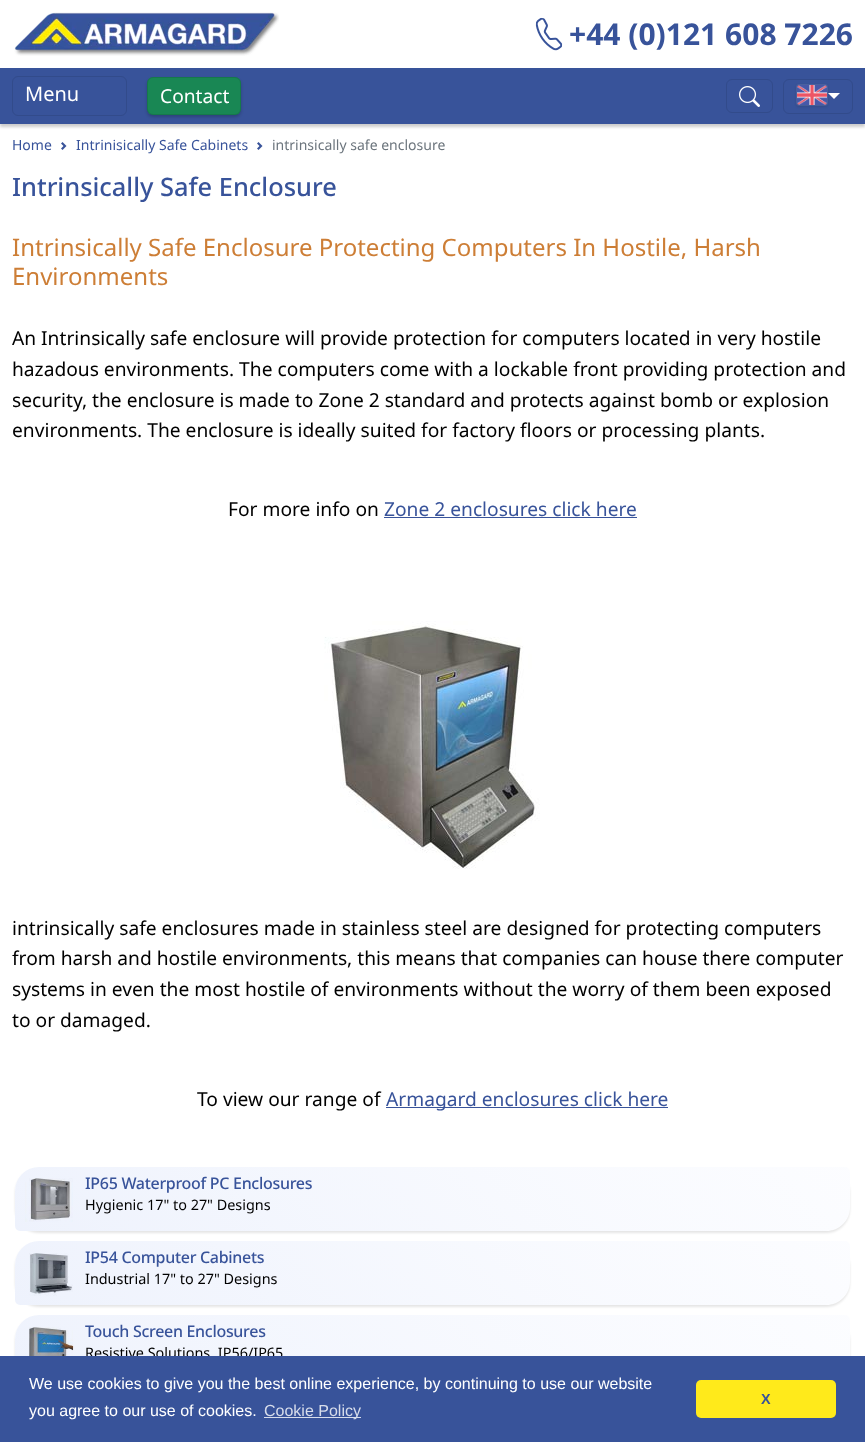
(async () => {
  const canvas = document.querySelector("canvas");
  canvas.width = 865;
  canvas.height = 1442;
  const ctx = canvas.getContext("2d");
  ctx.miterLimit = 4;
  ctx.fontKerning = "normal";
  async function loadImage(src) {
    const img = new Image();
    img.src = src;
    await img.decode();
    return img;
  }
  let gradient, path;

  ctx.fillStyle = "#ffffff";
  ctx.fillRect(0, 0, 865, 1442);
  ctx.drawImage(await loadImage("img/1.png"), 14, 12, 265, 44);
  ctx.drawImage(await loadImage("img/2.png"), 535, 17, 28, 34);
  ctx.fillStyle = "rgba(0, 0, 0, 0.2)";
  ctx.filter = "blur(1.5px)";
  ctx.beginPath();
  ctx.rect(0, 71, 865, 56);
  ctx.fill();
  ctx.filter = "none";
  ctx.fillStyle = "#38539a";
  ctx.fillRect(0, 68, 865, 56);
  ctx.beginPath();
  ctx.roundRect(12.5, 76.5, 114, 39, 5.5);
  ctx.strokeStyle = "#324b8b";
  ctx.stroke();
  ctx.fillStyle = "rgba(0, 0, 0, 0.2)";
  ctx.filter = "blur(1.5px)";
  ctx.beginPath();
  ctx.roundRect(147, 79, 94, 38, 6);
  ctx.fill();
  ctx.filter = "none";
  ctx.fillStyle = "#198754";
  ctx.beginPath();
  ctx.roundRect(147, 77, 94, 38, 6);
  ctx.fill();
  ctx.beginPath();
  ctx.roundRect(147.5, 77.5, 93, 37, 5.5);
  ctx.strokeStyle = "rgba(0, 0, 0, 0.1)";
  ctx.stroke();
  ctx.beginPath();
  ctx.roundRect(726.5, 79.5, 46, 33, 5.5);
  ctx.strokeStyle = "#324b8b";
  ctx.stroke();
  ctx.drawImage(await loadImage("img/3.png"), 739, 86, 21, 21);
  ctx.beginPath();
  ctx.roundRect(783.5, 79.5, 69, 34, 5.5);
  ctx.stroke();
  ctx.fillStyle = "rgba(0, 0, 0, 0.1)";
  ctx.filter = "blur(1px)";
  ctx.beginPath();
  ctx.roundRect(796, 85, 32, 22, 3);
  ctx.fill();
  ctx.filter = "none";
  ctx.drawImage(await loadImage("img/4.png"), 797, 85, 30, 20);
  ctx.beginPath();
  ctx.roundRect(796.5, 84.5, 31, 21, 2.5);
  ctx.strokeStyle = "rgba(255, 255, 255, 0.1)";
  ctx.stroke();
  ctx.fillStyle = "#ffffff";
  path = new Path2D("M828 93H840L834 99Z");
  ctx.fill(path);
  ctx.drawImage(await loadImage("img/5.png"), 61, 142, 6, 8);
  ctx.drawImage(await loadImage("img/5.png"), 257, 142, 6, 8);
  ctx.fillStyle = "#38539a";
  ctx.fillRect(384, 517, 253, 1);
  ctx.drawImage(await loadImage("img/6.png"), 324, 621, 216, 248);
  ctx.fillRect(386, 1107, 282, 1);
  ctx.drawImage(await loadImage("img/7.png"), 25, 1178, 48, 44);
  ctx.save();
  path = new Path2D("M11 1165H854V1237H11ZM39 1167H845C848 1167 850 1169 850 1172V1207C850 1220.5 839.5 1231 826 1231H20C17 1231 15 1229 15 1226V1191C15 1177.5 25.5 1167 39 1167Z");
  ctx.clip(path, "evenodd");
  ctx.fillStyle = "rgba(0, 0, 0, 0.1)";
  ctx.filter = "blur(1px)";
  ctx.beginPath();
  ctx.roundRect(15, 1169, 835, 64, 24);
  ctx.fill();
  ctx.filter = "none";
  ctx.restore();
  gradient = ctx.createLinearGradient(208, 1424, 657, 974);
  gradient.addColorStop(0, "rgba(86, 127, 230, 0.1)");
  gradient.addColorStop(1, "rgba(189, 207, 255, 0.05)");
  ctx.fillStyle = gradient;
  ctx.beginPath();
  ctx.roundRect(15, 1167, 835, 64, [24, 5, 24, 5]);
  ctx.fill();
  ctx.drawImage(await loadImage("img/8.png"), 29, 1253, 44, 43);
  ctx.save();
  path = new Path2D("M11 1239H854V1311H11ZM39 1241H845C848 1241 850 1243 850 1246V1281C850 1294.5 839.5 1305 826 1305H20C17 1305 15 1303 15 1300V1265C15 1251.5 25.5 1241 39 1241Z");
  ctx.clip(path, "evenodd");
  ctx.fillStyle = "rgba(0, 0, 0, 0.1)";
  ctx.filter = "blur(1px)";
  ctx.beginPath();
  ctx.roundRect(15, 1243, 835, 64, 24);
  ctx.fill();
  ctx.filter = "none";
  ctx.restore();
  gradient = ctx.createLinearGradient(208, 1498, 657, 1048);
  gradient.addColorStop(0, "rgba(86, 127, 230, 0.1)");
  gradient.addColorStop(1, "rgba(189, 207, 255, 0.05)");
  ctx.fillStyle = gradient;
  ctx.beginPath();
  ctx.roundRect(15, 1241, 835, 64, [24, 5, 24, 5]);
  ctx.fill();
  ctx.drawImage(await loadImage("img/9.png"), 29, 1327, 45, 29);
  ctx.save();
  path = new Path2D("M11 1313H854V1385H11ZM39 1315H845C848 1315 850 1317 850 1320V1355C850 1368.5 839.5 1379 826 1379H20C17 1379 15 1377 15 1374V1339C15 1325.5 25.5 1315 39 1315Z");
  ctx.clip(path, "evenodd");
  ctx.fillStyle = "rgba(0, 0, 0, 0.1)";
  ctx.filter = "blur(1px)";
  ctx.beginPath();
  ctx.roundRect(15, 1317, 835, 64, 24);
  ctx.fill();
  ctx.filter = "none";
  ctx.restore();
  gradient = ctx.createLinearGradient(208, 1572, 657, 1122);
  gradient.addColorStop(0, "rgba(86, 127, 230, 0.1)");
  gradient.addColorStop(1, "rgba(189, 207, 255, 0.05)");
  ctx.fillStyle = gradient;
  ctx.beginPath();
  ctx.roundRect(15, 1315, 835, 64, [24, 5, 24, 5]);
  ctx.fill();
  ctx.font = "bold 30px Noto Sans";
  ctx.fillStyle = "#38539a";
  ctx.fillText("+44 (0)121 608 7226", 569, 45);
  ctx.font = "20px Noto Sans";
  ctx.fillStyle = "#ffffff";
  ctx.fillText("Menu", 25, 101);
  ctx.font = "19.2px Noto Sans";
  ctx.fillText("Contact", 160, 103);
  ctx.font = "14px Noto Sans";
  ctx.fillStyle = "#38539a";
  ctx.fillText("Home", 12, 150);
  ctx.fillText("Intrinisically Safe Cabinets", 76, 150);
  ctx.fillStyle = "#6c757d";
  ctx.fillText("intrinsically safe enclosure", 272, 150);
  ctx.font = "500 25.4px Noto Sans";
  ctx.fillStyle = "#38539a";
  ctx.fillText("Intrinsically Safe Enclosure", 12, 196);
  ctx.font = "24px Noto Sans";
  ctx.fillStyle = "#cd7e36";
  ctx.fillText("Intrinsically Safe Enclosure Protecting Computers In Hostile, Harsh", 12, 256);
  ctx.fillText("Environments", 12, 285);
  ctx.font = "19.2px Noto Sans";
  ctx.fillStyle = "#000000";
  for (const [text, x, y] of [
    ["An Intrinsically safe enclosure will provide protection for computers located in very hostile", 12, 345],
    ["hazadous environments. The computers come with a lockable front providing protection and", 12, 376],
    ["security, the enclosure is made to Zone 2 standard and protects against bomb or explosion", 12, 407],
    ["environments. The enclosure is ideally suited for factory floors or processing plants.", 12, 437],
    ["For more info on", 228, 516],
  ]) {
    ctx.fillText(text, x, y);
  }
  ctx.fillStyle = "#38539a";
  ctx.fillText("Zone 2 enclosures click here", 384, 516);
  ctx.fillStyle = "#000000";
  for (const [text, x, y] of [
    ["intrinsically safe enclosures made in stainless steel are designed for protecting computers", 12, 935],
    ["from harsh and hostile environments, this means that companies can house there computer", 12, 965],
    ["systems in even the most hostile of environments without the worry of them been exposed", 12, 996],
    ["to or damaged.", 12, 1027],
    ["To view our range of", 197, 1106],
  ]) {
    ctx.fillText(text, x, y);
  }
  ctx.fillStyle = "#38539a";
  ctx.fillText("Armagard enclosures click here", 386, 1106);
  ctx.letterSpacing = "-0.3px";
  ctx.font = "500 16px Noto Sans";
  ctx.fillText("IP65 Waterproof PC Enclosures", 85, 1189);
  ctx.letterSpacing = "0px";
  ctx.font = "14.4px Noto Sans";
  ctx.fillStyle = "#000000";
  ctx.fillText("Hygienic 17\" to 27\" Designs", 85, 1210);
  ctx.letterSpacing = "-0.3px";
  ctx.font = "500 16px Noto Sans";
  ctx.fillStyle = "#38539a";
  ctx.fillText("IP54 Computer Cabinets", 85, 1263);
  ctx.letterSpacing = "0px";
  ctx.font = "14.4px Noto Sans";
  ctx.fillStyle = "#000000";
  ctx.fillText("Industrial 17\" to 27\" Designs", 85, 1284);
  ctx.letterSpacing = "-0.3px";
  ctx.font = "500 16px Noto Sans";
  ctx.fillStyle = "#38539a";
  ctx.fillText("Touch Screen Enclosures", 85, 1337);
  ctx.letterSpacing = "0px";
  ctx.font = "14.4px Noto Sans";
  ctx.fillStyle = "#000000";
  ctx.fillText("Resistive Solutions, IP56/IP65", 85, 1358);
  ctx.fillStyle = "#38539a";
  ctx.fillRect(0, 1356, 865, 86);
  ctx.font = "16px Liberation Sans";
  ctx.fillStyle = "#ffffff";
  ctx.fillText("We use cookies to give you the best online experience, by continuing to use our website", 29, 1389);
  ctx.fillText("you agree to our use of cookies.", 29, 1416);
  ctx.fillStyle = "#d7ddeb";
  ctx.fillRect(264, 1417, 97, 1);
  ctx.fillText("Cookie Policy", 264, 1416);
  ctx.fillStyle = "#ffea1b";
  ctx.beginPath();
  ctx.roundRect(696, 1380, 140, 38, 5);
  ctx.fill();
  ctx.font = "bold 14.4px Liberation Sans";
  ctx.fillStyle = "#38539a";
  ctx.fillText("X", 761, 1404);
})();
